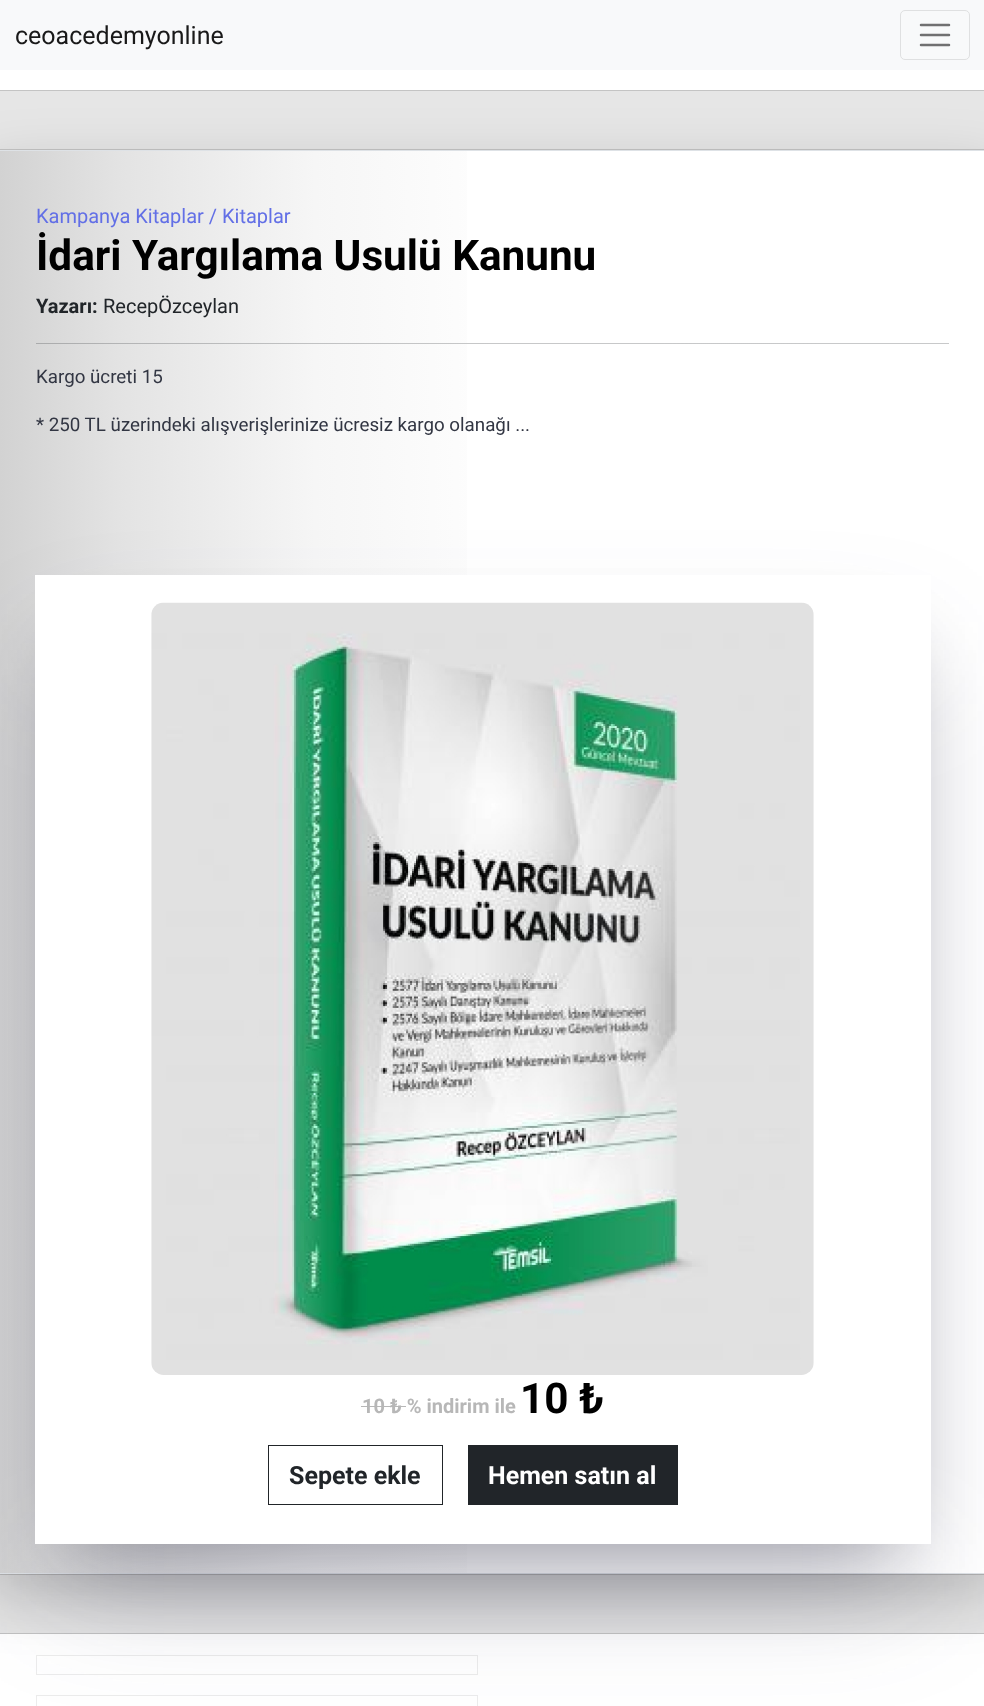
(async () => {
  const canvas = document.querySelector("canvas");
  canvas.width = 984;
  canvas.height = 1706;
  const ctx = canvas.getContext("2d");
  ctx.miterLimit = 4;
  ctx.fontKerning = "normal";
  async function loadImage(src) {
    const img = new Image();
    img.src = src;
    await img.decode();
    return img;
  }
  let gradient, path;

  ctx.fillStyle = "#ffffff";
  ctx.fillRect(0, 0, 984, 1706);
  ctx.fillStyle = "#f8f9fa";
  ctx.fillRect(0, 0, 984, 70);
  ctx.beginPath();
  ctx.roundRect(900.5, 10.5, 69, 49, 4.5);
  ctx.strokeStyle = "#dfe0e1";
  ctx.stroke();
  path = new Path2D("M921 25H949M921 35H949M921 45H949");
  ctx.strokeStyle = "#707071";
  ctx.lineWidth = 2.5;
  ctx.lineCap = "round";
  ctx.stroke(path);
  for (const [x, y, w, h, color] of [
    [0, 91, 984, 58, "#e6e6e6"],
    [0, 90, 984, 1, "#c4c4c4"],
    [0, 149, 984, 1, "#c4c4c4"],
  ]) {
    ctx.fillStyle = color;
    ctx.fillRect(x, y, w, h);
  }
  gradient = ctx.createLinearGradient(0, 862, 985, 862);
  gradient.addColorStop(0, "#d2d2d2");
  gradient.addColorStop(0.12, "#e3e3e3");
  gradient.addColorStop(0.32, "#f6f6f6");
  gradient.addColorStop(0.51, "#fefefe");
  gradient.addColorStop(1, "#ffffff");
  ctx.fillStyle = gradient;
  ctx.fillRect(0, 151, 467, 1422);
  gradient = ctx.createLinearGradient(0, 862, 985, 862);
  gradient.addColorStop(0, "#a6a7a8");
  gradient.addColorStop(0.12, "#b3b4b5");
  gradient.addColorStop(0.32, "#c1c2c3");
  gradient.addColorStop(0.51, "#c7c8c9");
  gradient.addColorStop(1, "#c8c9ca");
  ctx.fillStyle = gradient;
  ctx.fillRect(36, 343, 913, 1);
  ctx.save();
  path = new Path2D("M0 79H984V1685H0ZM-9 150H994C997.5 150 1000 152.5 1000 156V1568C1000 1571.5 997.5 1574 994 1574H-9C-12.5 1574-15 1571.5-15 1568V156C-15 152.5-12.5 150-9 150Z");
  ctx.clip(path, "evenodd");
  ctx.fillStyle = "rgba(0, 0, 0, 0.18)";
  ctx.filter = "blur(30px)";
  ctx.beginPath();
  ctx.roundRect(-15, 170, 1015, 1424, 6);
  ctx.fill();
  ctx.filter = "none";
  ctx.restore();
  ctx.strokeStyle = "#dee2e6";
  ctx.lineWidth = 1;
  ctx.strokeRect(-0.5, 150.5, 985, 1423);
  for (const [x, y, w, h, color] of [
    [0, 1574, 984, 59, "rgba(0, 0, 0, 0.1)"],
    [0, 1574, 984, 1, "rgba(0, 0, 0, 0.15)"],
    [0, 1633, 984, 1, "#c0c0c0"],
  ]) {
    ctx.fillStyle = color;
    ctx.fillRect(x, y, w, h);
  }
  ctx.strokeStyle = "#ececec";
  ctx.strokeRect(36.5, 1655.5, 441, 19);
  ctx.fillStyle = "rgba(0, 0, 0, 0.3)";
  ctx.filter = "blur(37.5px)";
  ctx.beginPath();
  ctx.rect(73, 650, 821, 894);
  ctx.fill();
  ctx.filter = "none";
  ctx.strokeRect(36.5, 1695.5, 441, 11);
  ctx.fillStyle = "rgba(50, 50, 93, 0.25)";
  ctx.filter = "blur(62.5px)";
  ctx.beginPath();
  ctx.rect(60, 663, 846, 918);
  ctx.fill();
  ctx.filter = "none";
  ctx.fillStyle = "#ffffff";
  ctx.fillRect(35, 575, 896, 969);
  ctx.drawImage(await loadImage("img/1.png"), 151, 602, 663, 773);
  ctx.fillStyle = "#b7b7b7";
  ctx.fillRect(361, 1406, 45, 1);
  ctx.strokeStyle = "#212529";
  ctx.strokeRect(268.5, 1445.5, 174, 59);
  ctx.fillStyle = "#212529";
  ctx.fillRect(468, 1445, 210, 60);
  ctx.font = "25px Roboto";
  ctx.fillStyle = "#191919";
  ctx.fillText("ceoacedemyonline", 15, 44);
  ctx.font = "20px Roboto";
  ctx.fillStyle = "#626fe6";
  ctx.fillText("Kampanya Kitaplar / Kitaplar", 36, 223);
  ctx.font = "bold 42.25px Roboto";
  ctx.fillStyle = "#000000";
  ctx.fillText("İdari Yargılama Usulü Kanunu", 36, 270);
  ctx.font = "bold 20px Roboto";
  ctx.fillStyle = "#212529";
  ctx.fillText("Yazarı:", 36, 313);
  ctx.font = "20px Roboto";
  ctx.fillText("RecepÖzceylan", 103, 313);
  ctx.font = "18.75px Roboto";
  ctx.fillStyle = "#323643";
  ctx.fillText("Kargo ücreti 15", 36, 383);
  ctx.fillText("* 250 TL üzerindeki alışverişlerinize ücresiz kargo olanağı ...", 36, 431);
  ctx.font = "bold 20px Roboto";
  ctx.fillStyle = "#b7b7b7";
  ctx.fillText("10 ₺ % indirim ile", 362, 1413);
  ctx.font = "bold 42.25px Roboto";
  ctx.fillStyle = "#000000";
  ctx.fillText("10 ₺", 520, 1413);
  ctx.font = "bold 25px Roboto";
  ctx.fillStyle = "#212529";
  ctx.fillText("Sepete ekle", 289, 1484);
  ctx.fillStyle = "#ffffff";
  ctx.fillText("Hemen satın al", 488, 1484);
})();
